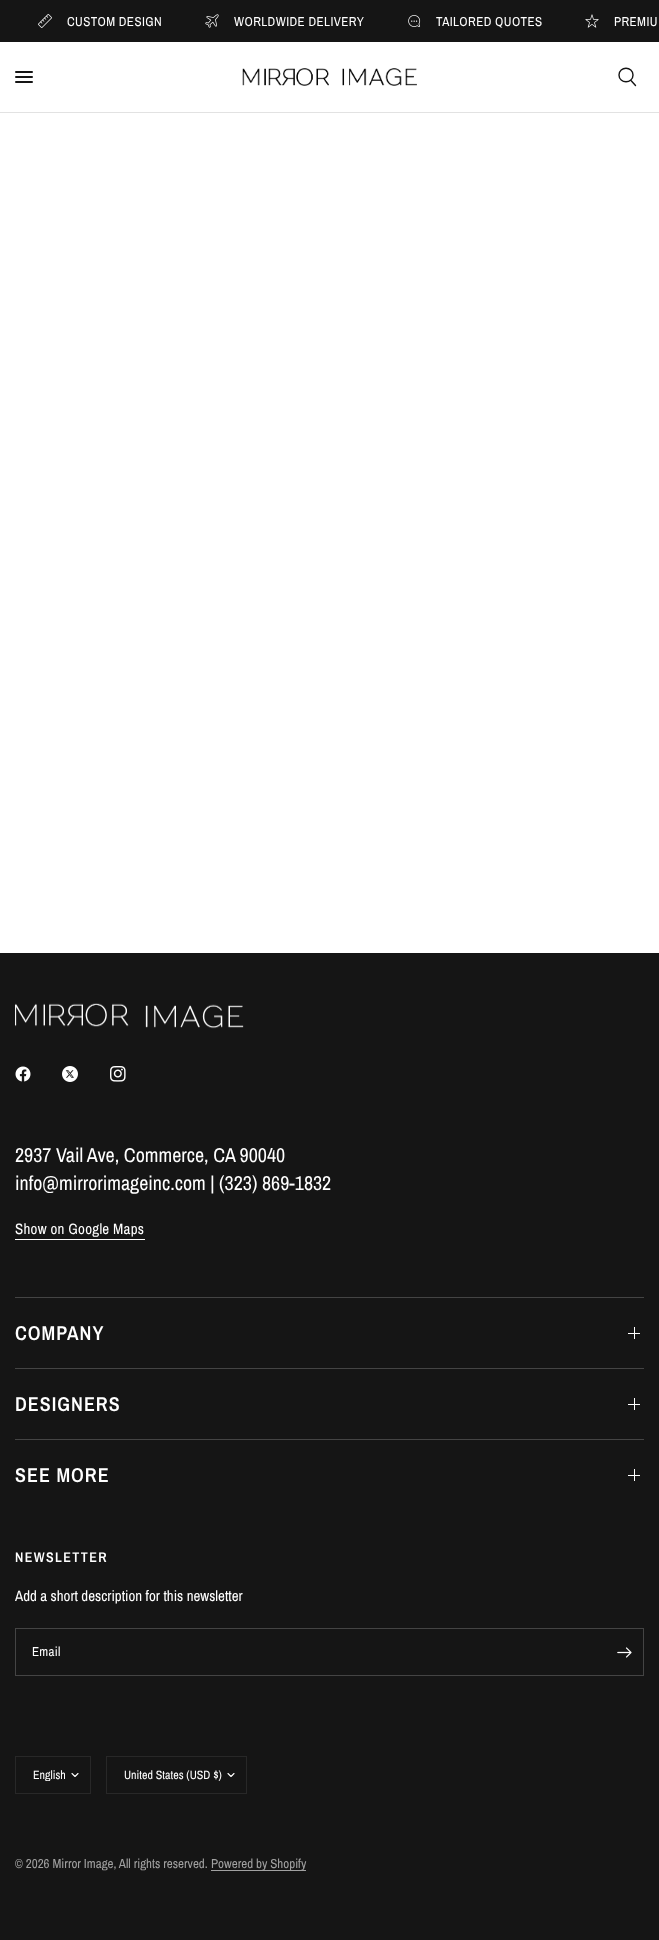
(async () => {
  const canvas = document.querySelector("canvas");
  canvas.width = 659;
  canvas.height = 1940;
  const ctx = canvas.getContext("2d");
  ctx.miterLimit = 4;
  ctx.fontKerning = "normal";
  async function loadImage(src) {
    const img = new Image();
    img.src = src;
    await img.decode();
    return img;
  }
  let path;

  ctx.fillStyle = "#ffffff";
  ctx.fillRect(0, 0, 659, 1940);
  ctx.fillStyle = "#151515";
  ctx.fillRect(0, 0, 659, 42);
  ctx.drawImage(await loadImage("img/1.png"), 38, 14, 14, 14);
  ctx.drawImage(await loadImage("img/2.png"), 205, 14, 14, 14);
  ctx.drawImage(await loadImage("img/3.png"), 408, 15, 13, 12);
  ctx.drawImage(await loadImage("img/4.png"), 585, 14, 14, 14);
  ctx.fillStyle = "#e2e2e2";
  ctx.fillRect(0, 112, 659, 1);
  ctx.fillStyle = "#151515";
  ctx.beginPath();
  ctx.roundRect(15, 71, 18, 2, 1);
  ctx.fill();
  ctx.beginPath();
  ctx.roundRect(15, 76, 18, 2, 1);
  ctx.fill();
  ctx.beginPath();
  ctx.roundRect(15, 81, 18, 2, 1);
  ctx.fill();
  ctx.drawImage(await loadImage("img/5.png"), 242, 68, 175, 18);
  path = new Path2D("M631 80.5L635.5 85.5M633 75C633 84 619 84 619 75C619 66 633 66 633 75Z");
  ctx.strokeStyle = "#151515";
  ctx.lineWidth = 1.4;
  ctx.lineCap = "round";
  ctx.lineJoin = "round";
  ctx.stroke(path);
  ctx.fillRect(0, 953, 659, 987);
  ctx.drawImage(await loadImage("img/6.png"), 15, 1003, 229, 26);
  ctx.drawImage(await loadImage("img/7.png"), 15, 1066, 16, 16);
  ctx.drawImage(await loadImage("img/8.png"), 62, 1066, 16, 16);
  ctx.drawImage(await loadImage("img/9.png"), 110, 1066, 16, 16);
  for (const [x, y, w, h, color] of [
    [15, 1239, 130, 1, "#ffffff"],
    [15, 1297, 629, 1, "#444444"],
    [634, 1327, 1, 12, "#ffffff"],
    [628, 1333, 12, 1, "#ffffff"],
    [15, 1368, 629, 1, "#444444"],
    [634, 1398, 1, 12, "#ffffff"],
    [628, 1404, 12, 1, "#ffffff"],
    [15, 1439, 629, 1, "#444444"],
    [634, 1469, 1, 12, "#ffffff"],
    [628, 1475, 12, 1, "#ffffff"],
  ]) {
    ctx.fillStyle = color;
    ctx.fillRect(x, y, w, h);
  }
  ctx.strokeStyle = "#444444";
  ctx.lineWidth = 1;
  ctx.lineJoin = "miter";
  ctx.strokeRect(15.5, 1628.5, 628, 47);
  ctx.drawImage(await loadImage("img/10.png"), 617, 1647, 15, 11);
  ctx.strokeStyle = "#282828";
  ctx.strokeRect(15.5, 1756.5, 75, 37);
  path = new Path2D("M78 1773.5L75 1776.5L72 1773.5");
  ctx.strokeStyle = "#ffffff";
  ctx.lineWidth = 1.1;
  ctx.lineJoin = "round";
  ctx.stroke(path);
  ctx.strokeStyle = "#282828";
  ctx.lineWidth = 1;
  ctx.lineJoin = "miter";
  ctx.strokeRect(106.5, 1756.5, 140, 37);
  path = new Path2D("M234 1773.5L231 1776.5L228 1773.5");
  ctx.strokeStyle = "#ffffff";
  ctx.lineWidth = 1.1;
  ctx.lineJoin = "round";
  ctx.stroke(path);
  ctx.fillStyle = "#a1a1a1";
  ctx.fillRect(211, 1870, 95, 1);
  ctx.letterSpacing = "0.4px";
  ctx.font = "13px Archivo Narrow";
  ctx.fillStyle = "#ffffff";
  for (const [text, x, y] of [
    ["CUSTOM DESIGN", 67, 26],
    ["WORLDWIDE DELIVERY", 234, 26],
    ["TAILORED QUOTES", 436, 26],
    ["PREMIU", 614, 26],
  ]) {
    ctx.fillText(text, x, y);
  }
  ctx.letterSpacing = "0px";
  ctx.font = "20px Archivo Narrow";
  ctx.fillText("2937 Vail Ave, Commerce, CA 90040", 15, 1162);
  ctx.fillText("info@mirrorimageinc.com | (323) 869-1832", 15, 1190);
  ctx.letterSpacing = "0.25px";
  ctx.font = "15px Archivo Narrow";
  ctx.fillText("Show on Google Maps", 15, 1234);
  ctx.letterSpacing = "1px";
  ctx.font = "600 20px Archivo Narrow";
  for (const [text, x, y] of [
    ["COMPANY", 15, 1340],
    ["DESIGNERS", 15, 1411],
    ["SEE MORE", 15, 1482],
  ]) {
    ctx.fillText(text, x, y);
  }
  ctx.letterSpacing = "1.4px";
  ctx.font = "600 14px Archivo Narrow";
  ctx.fillText("NEWSLETTER", 15, 1562);
  ctx.letterSpacing = "0px";
  ctx.font = "15px Archivo Narrow";
  ctx.fillText("Add a short description for this newsletter", 15, 1601);
  ctx.letterSpacing = "0.25px";
  ctx.font = "13px Archivo Narrow";
  ctx.fillText("Email", 32, 1656);
  ctx.save();
  ctx.beginPath();
  ctx.rect(33, 1769, 33, 12);
  ctx.clip();
  ctx.letterSpacing = "0px";
  ctx.font = "12px Archivo Narrow";
  ctx.fillText("English", 33, 1779);
  ctx.restore();
  ctx.letterSpacing = "0px";
  ctx.font = "12px Archivo Narrow";
  ctx.fillText("United States (USD $)", 124, 1779);
  ctx.font = "13px Archivo Narrow";
  ctx.fillStyle = "#a1a1a1";
  ctx.fillText("© 2026 Mirror Image, All rights reserved.", 15, 1868);
  ctx.fillText("Powered by Shopify", 211, 1868);
})();
